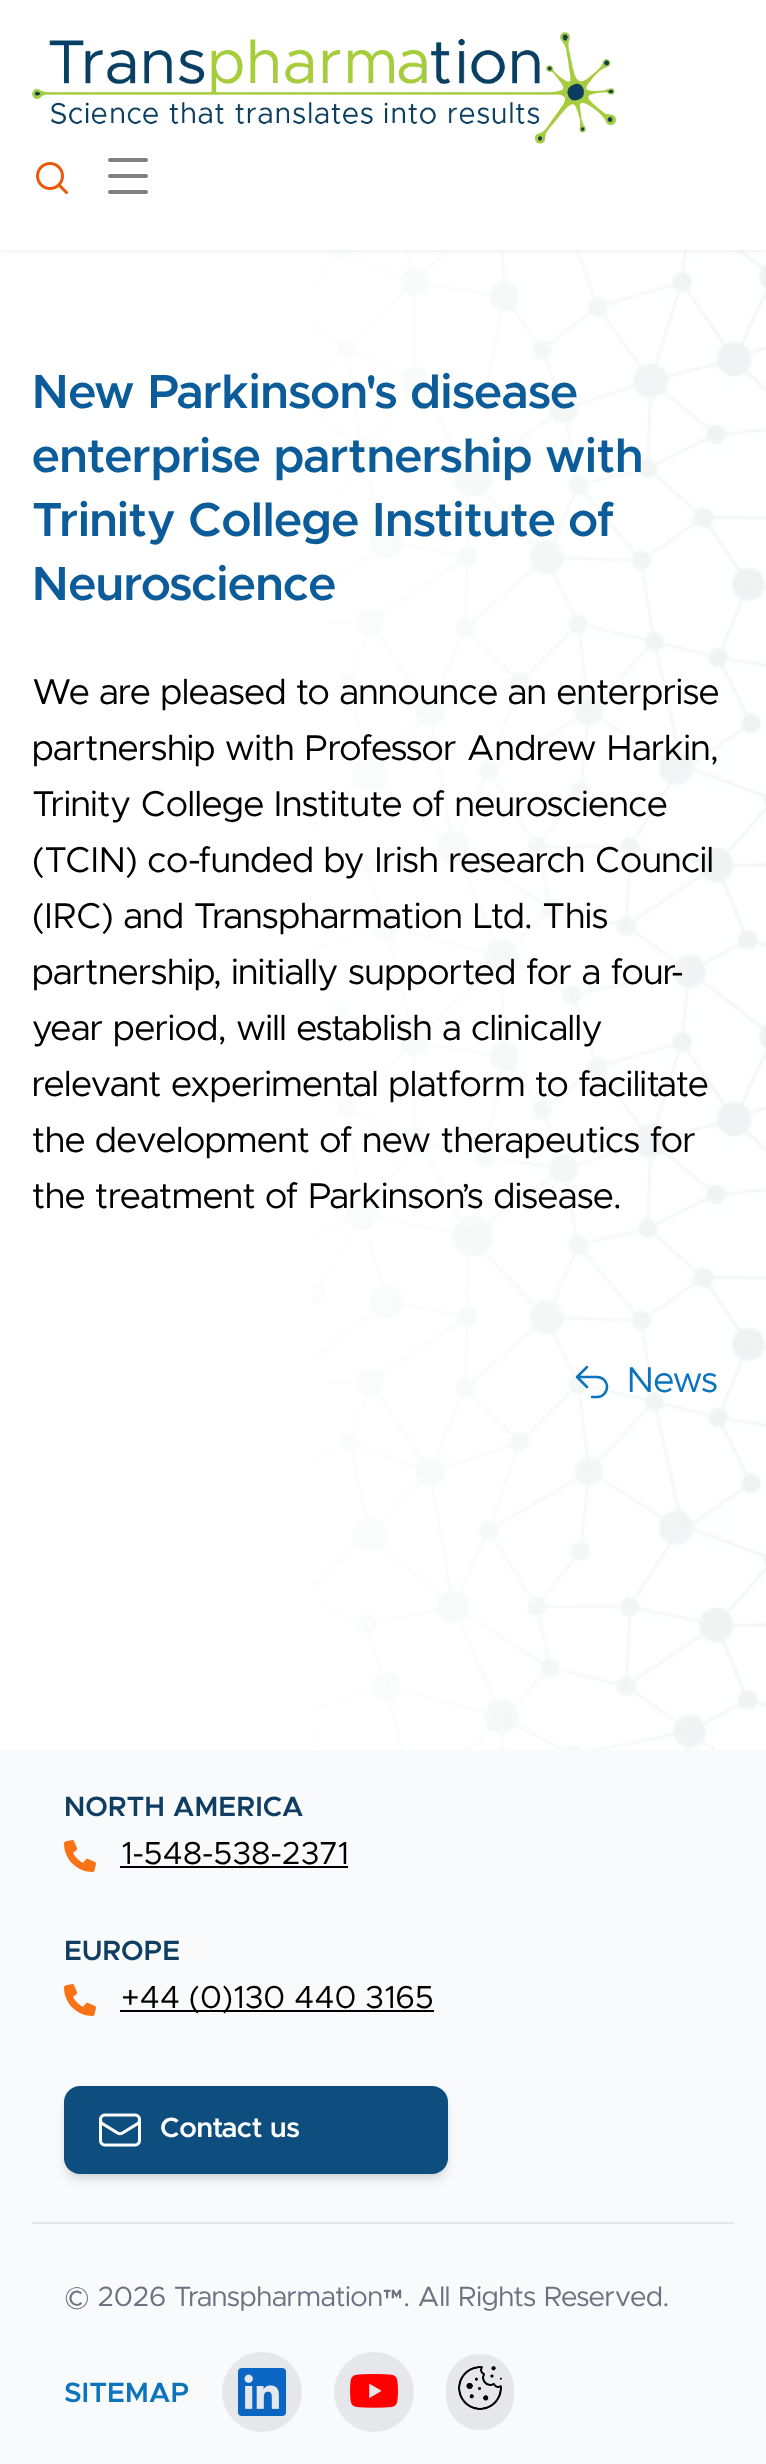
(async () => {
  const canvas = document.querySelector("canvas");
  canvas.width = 766;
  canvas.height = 2464;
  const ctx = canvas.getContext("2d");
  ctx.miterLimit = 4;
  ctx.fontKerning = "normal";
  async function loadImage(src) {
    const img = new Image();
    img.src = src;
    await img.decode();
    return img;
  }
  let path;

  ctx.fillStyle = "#ffffff";
  ctx.fillRect(0, 0, 766, 2464);
  ctx.drawImage(await loadImage("img/3.png"), 312, 250, 454, 1500);
  ctx.fillStyle = "rgba(0, 0, 0, 0.05)";
  ctx.filter = "blur(2px)";
  ctx.beginPath();
  ctx.rect(0, 2, 766, 250);
  ctx.fill();
  ctx.filter = "none";
  ctx.fillStyle = "#ffffff";
  ctx.fillRect(0, 0, 766, 250);
  ctx.drawImage(await loadImage("img/1.png"), 32, 32, 584, 112);
  ctx.drawImage(await loadImage("img/2.png"), 36, 162, 32, 32);
  ctx.fillStyle = "#808080";
  ctx.beginPath();
  ctx.roundRect(108, 174, 40, 4, 2);
  ctx.fill();
  ctx.beginPath();
  ctx.roundRect(108, 158, 40, 4, 2);
  ctx.fill();
  ctx.beginPath();
  ctx.roundRect(108, 190, 40, 4, 2);
  ctx.fill();
  path = new Path2D("M587 1387L577 1377M577 1377L587 1367M577 1377H597C602.5 1377 607 1381.5 607 1387C607 1392.5 602.5 1397 597 1397H592");
  ctx.strokeStyle = "#0c73bd";
  ctx.lineWidth = 2.5;
  ctx.lineCap = "round";
  ctx.lineJoin = "round";
  ctx.stroke(path);
  ctx.fillStyle = "#f8fafc";
  ctx.fillRect(0, 1750, 766, 714);
  ctx.drawImage(await loadImage("img/4.png"), 64, 1840, 32, 32);
  ctx.fillStyle = "#000000";
  ctx.fillRect(120, 1866, 228, 2);
  ctx.drawImage(await loadImage("img/4.png"), 64, 1984, 32, 32);
  ctx.fillRect(120, 2010, 314, 2);
  ctx.fillStyle = "rgba(0, 0, 0, 0.1)";
  ctx.filter = "blur(4px)";
  ctx.beginPath();
  ctx.roundRect(68, 2094, 376, 80, 12);
  ctx.fill();
  ctx.filter = "none";
  ctx.filter = "blur(6px)";
  ctx.beginPath();
  ctx.roundRect(66, 2096, 380, 84, 14);
  ctx.fill();
  ctx.filter = "none";
  ctx.fillStyle = "#0d4e7f";
  ctx.beginPath();
  ctx.roundRect(64, 2086, 384, 88, 16);
  ctx.fill();
  ctx.drawImage(await loadImage("img/5.png"), 99, 2113, 42, 34);
  ctx.fillStyle = "#e5e7eb";
  ctx.fillRect(32, 2222, 702, 2);
  ctx.beginPath();
  ctx.arc(262, 2392, 40, 0, Math.PI * 2);
  ctx.fill();
  ctx.drawImage(await loadImage("img/6.png"), 238, 2368, 48, 48);
  ctx.beginPath();
  ctx.arc(374, 2392, 40, 0, Math.PI * 2);
  ctx.fill();
  ctx.drawImage(await loadImage("img/7.png"), 350, 2374, 48, 34);
  ctx.beginPath();
  ctx.roundRect(446, 2354, 68, 76, 34);
  ctx.fill();
  ctx.drawImage(await loadImage("img/8.png"), 458, 2366, 44, 44);
  ctx.font = "600 48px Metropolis";
  ctx.fillStyle = "#0b5c99";
  for (const [text, x, y] of [
    ["New Parkinson's disease", 32, 408],
    ["enterprise partnership with", 32, 472],
    ["Trinity College Institute of", 32, 536],
    ["Neuroscience", 32, 600],
  ]) {
    ctx.fillText(text, x, y);
  }
  ctx.font = "36px Metropolis";
  ctx.fillStyle = "#000000";
  for (const [text, x, y] of [
    ["We are pleased to announce an enterprise", 32, 704],
    ["partnership with Professor Andrew Harkin,", 32, 760],
    ["Trinity College Institute of neuroscience", 32, 816],
    ["(TCIN) co-funded by Irish research Council", 32, 872],
    ["(IRC) and Transpharmation Ltd. This", 32, 928],
    ["partnership, initially supported for a four-", 32, 984],
    ["year period, will establish a clinically", 32, 1040],
    ["relevant experimental platform to facilitate", 32, 1096],
    ["the development of new therapeutics for", 32, 1152],
    ["the treatment of Parkinson’s disease.", 32, 1208],
  ]) {
    ctx.fillText(text, x, y);
  }
  ctx.fillStyle = "#0c73bd";
  ctx.fillText("News", 627, 1392);
  ctx.font = "600 28px Metropolis";
  ctx.fillStyle = "#103e63";
  ctx.fillText("NORTH AMERICA", 64, 1816);
  ctx.font = "32px Metropolis";
  ctx.fillStyle = "#000000";
  ctx.fillText("1-548-538-2371", 121, 1864);
  ctx.font = "600 28px Metropolis";
  ctx.fillStyle = "#103e63";
  ctx.fillText("EUROPE", 64, 1960);
  ctx.font = "32px Metropolis";
  ctx.fillStyle = "#000000";
  ctx.fillText("+44 (0)130 440 3165", 121, 2008);
  ctx.font = "600 28px Metropolis";
  ctx.fillStyle = "#ffffff";
  ctx.fillText("Contact us", 160, 2137);
  ctx.font = "28px Metropolis";
  ctx.fillStyle = "#6b7280";
  ctx.fillText("© 2026 Transpharmation™. All Rights Reserved.", 64, 2306);
  ctx.font = "600 28px Metropolis";
  ctx.fillStyle = "#0c73bd";
  ctx.fillText("SITEMAP", 64, 2402);
})();
